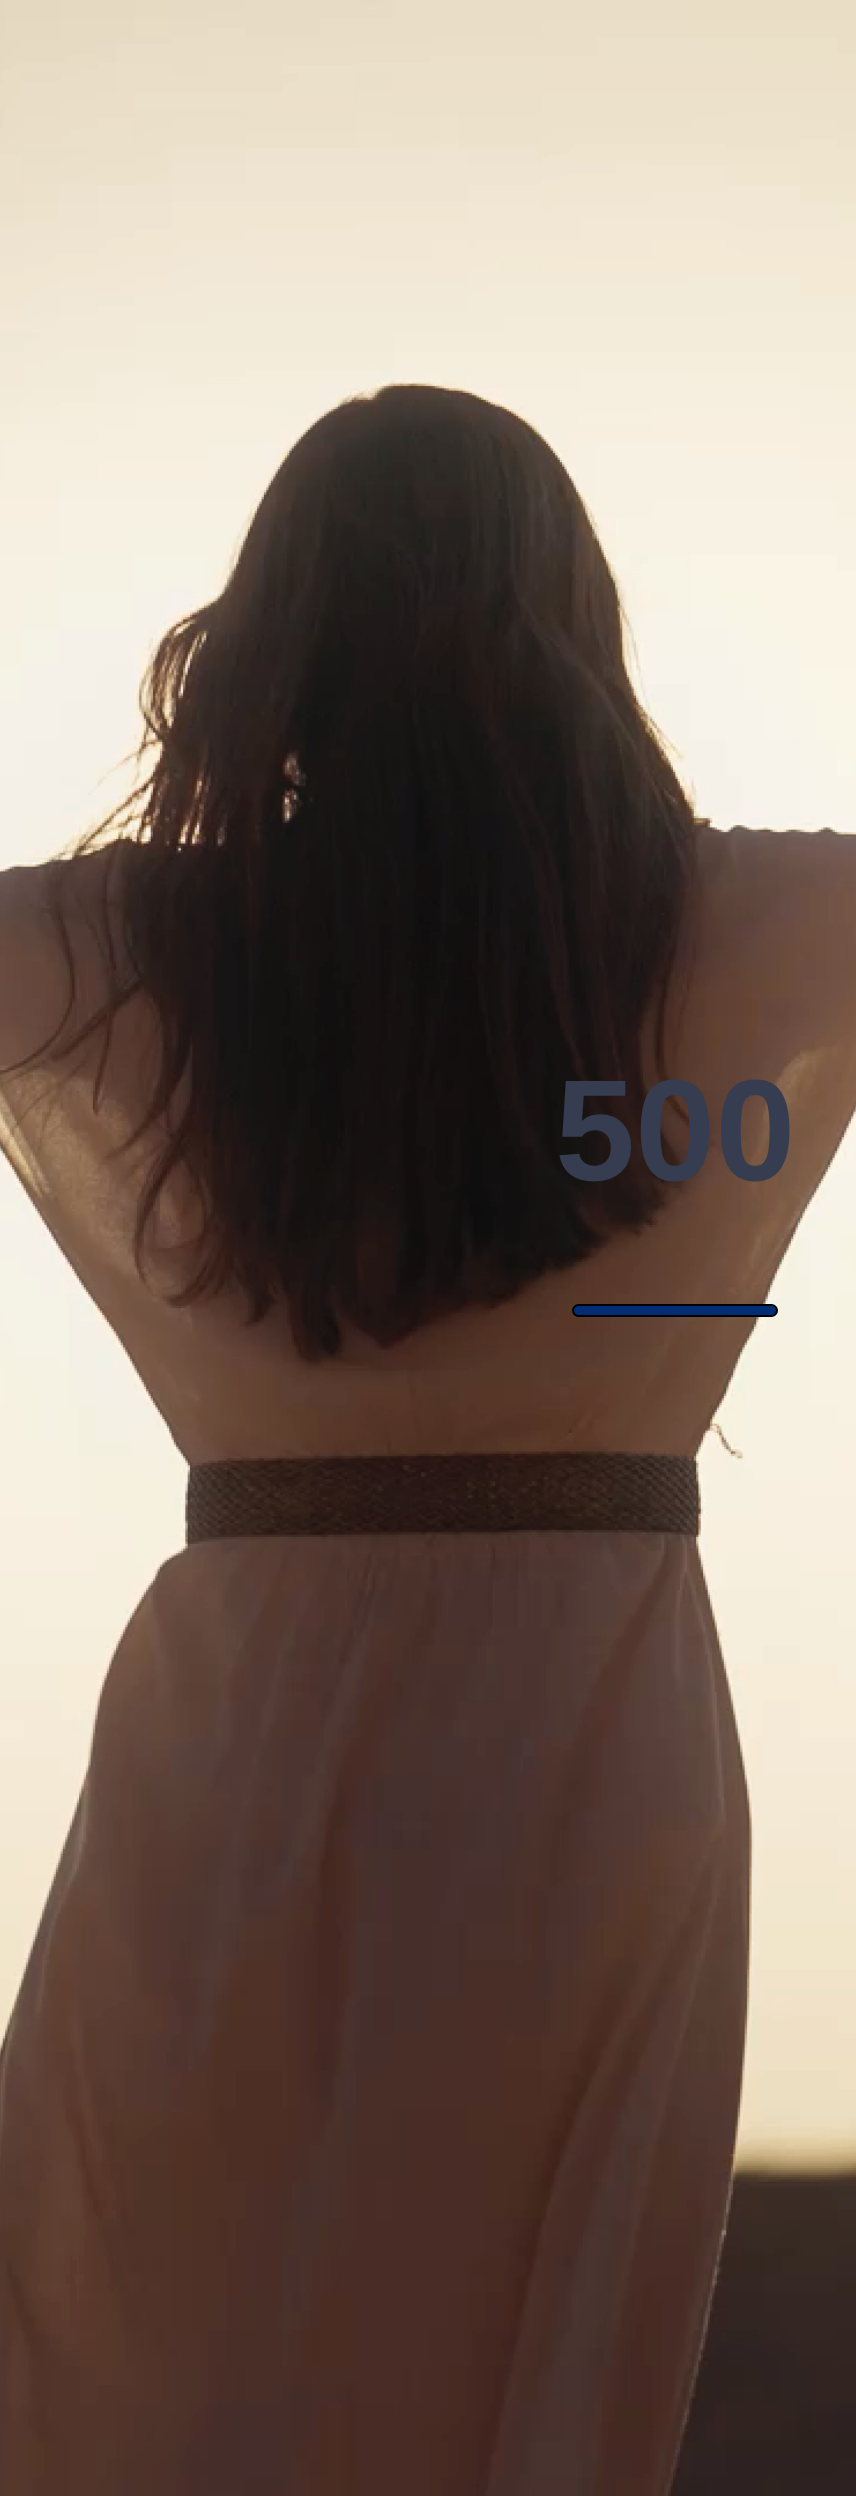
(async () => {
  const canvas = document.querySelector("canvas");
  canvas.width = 856;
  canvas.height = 2496;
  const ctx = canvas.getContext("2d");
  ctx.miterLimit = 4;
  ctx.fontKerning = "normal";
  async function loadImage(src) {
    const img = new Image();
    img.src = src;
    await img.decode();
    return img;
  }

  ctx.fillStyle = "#ffffff";
  ctx.fillRect(0, 0, 856, 2496);
  ctx.drawImage(await loadImage("img/1.png"), 0, 0, 856, 2496);
  ctx.fillStyle = "#002d74";
  ctx.beginPath();
  ctx.roundRect(573, 1305, 204, 11, 5.5);
  ctx.fill();
  ctx.strokeStyle = "#000000";
  ctx.lineWidth = 2;
  ctx.stroke();
  ctx.font = "bold 144px Liberation Sans";
  ctx.fillStyle = "#363d50";
  ctx.fillText("500", 555, 1180);
})();
